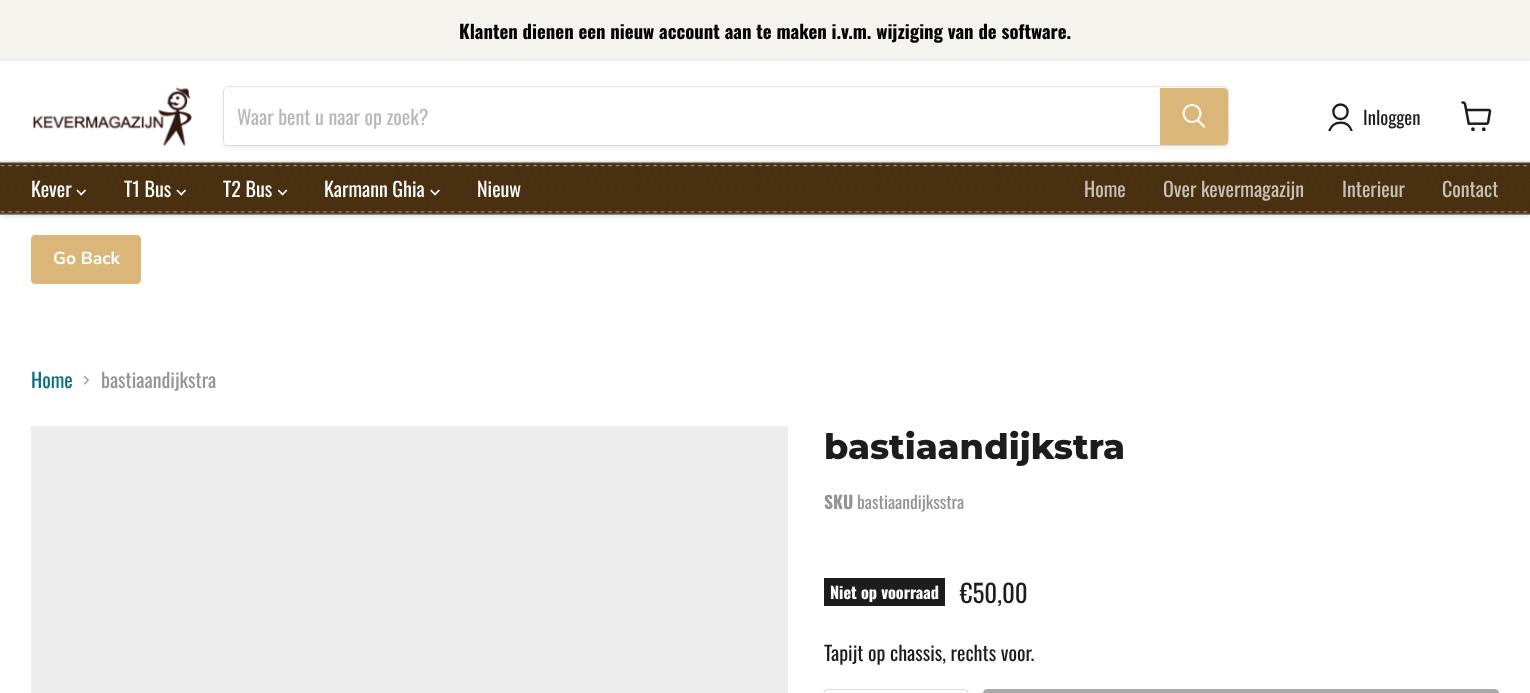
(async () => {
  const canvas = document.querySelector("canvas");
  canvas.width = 1530;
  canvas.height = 693;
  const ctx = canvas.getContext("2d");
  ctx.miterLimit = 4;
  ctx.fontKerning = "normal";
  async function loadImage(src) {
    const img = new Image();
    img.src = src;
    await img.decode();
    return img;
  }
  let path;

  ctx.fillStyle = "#ffffff";
  ctx.fillRect(0, 0, 1530, 693);
  ctx.fillStyle = "#f5f3ed";
  ctx.fillRect(0, 0, 1530, 61);
  ctx.fillStyle = "rgba(128, 128, 128, 0.25)";
  ctx.filter = "blur(2.5px)";
  ctx.beginPath();
  ctx.rect(0, 63, 1530, 153);
  ctx.fill();
  ctx.filter = "none";
  ctx.fillStyle = "#ffffff";
  ctx.fillRect(0, 61, 1530, 99);
  ctx.drawImage(await loadImage("img/1.png"), 33, 87, 160, 60);
  ctx.fillStyle = "rgba(128, 128, 128, 0.11)";
  ctx.filter = "blur(2px)";
  ctx.beginPath();
  ctx.roundRect(223, 89, 1006, 60, 5);
  ctx.fill();
  ctx.filter = "none";
  ctx.beginPath();
  ctx.roundRect(223.5, 86.5, 1005, 59, 4.5);
  ctx.strokeStyle = "rgba(128, 128, 128, 0.2)";
  ctx.stroke();
  ctx.fillStyle = "#ffffff";
  ctx.beginPath();
  ctx.roundRect(224, 88, 936, 57, [4, 0, 0, 4]);
  ctx.fill();
  ctx.fillStyle = "#dab779";
  ctx.beginPath();
  ctx.roundRect(1160.5, 88.5, 67, 56, [0, 3.5, 3.5, 0]);
  ctx.fill();
  ctx.strokeStyle = "#dab779";
  ctx.stroke();
  path = new Path2D("M1204 126.5L1198 120.5");
  ctx.strokeStyle = "#ffffff";
  ctx.lineWidth = 2.2;
  ctx.lineCap = "round";
  ctx.stroke(path);
  ctx.beginPath();
  ctx.arc(1192, 113.5, 8.5, 0, Math.PI * 2);
  ctx.stroke();
  path = new Path2D("M1340.5 119C1350 119 1350 104.5 1340.5 104.5C1331 104.5 1331 119 1340.5 119Z");
  ctx.strokeStyle = "#1d1d1d";
  ctx.lineWidth = 2.3;
  ctx.lineJoin = "round";
  ctx.stroke(path);
  ctx.save();
  ctx.beginPath();
  ctx.rect(1328, 103, 25, 28);
  ctx.clip();
  path = new Path2D("M1351.5 130.5C1348 120 1333.5 120 1329.5 130.5");
  ctx.stroke(path);
  ctx.restore();
  ctx.drawImage(await loadImage("img/2.png"), 1461, 101, 31, 30);
  ctx.drawImage(await loadImage("img/3.png"), 0, 160, 1530, 55);
  ctx.drawImage(await loadImage("img/4.png"), 76, 189, 10, 7);
  ctx.drawImage(await loadImage("img/5.png"), 176, 189, 10, 7);
  ctx.drawImage(await loadImage("img/6.png"), 278, 189, 10, 7);
  ctx.drawImage(await loadImage("img/7.png"), 430, 189, 10, 7);
  ctx.beginPath();
  ctx.roundRect(31.5, 235.5, 109, 48, 3.5);
  ctx.fill();
  ctx.strokeStyle = "#dab779";
  ctx.lineWidth = 1;
  ctx.lineJoin = "miter";
  ctx.stroke();
  ctx.drawImage(await loadImage("img/8.png"), 83, 375, 6, 10);
  ctx.fillStyle = "#ededed";
  ctx.fillRect(31, 426, 757, 267);
  ctx.fillStyle = "#1d1d1d";
  ctx.fillRect(824, 578, 121, 28);
  ctx.fillStyle = "rgba(0, 0, 0, 0.15)";
  ctx.filter = "blur(1px)";
  ctx.beginPath();
  ctx.roundRect(824, 690, 144, 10, 4);
  ctx.fill();
  ctx.filter = "none";
  ctx.fillStyle = "#ffffff";
  ctx.beginPath();
  ctx.roundRect(824.5, 689.5, 143, 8, 3.5);
  ctx.fill();
  ctx.strokeStyle = "#dddddd";
  ctx.stroke();
  ctx.fillStyle = "#aaaaaa";
  ctx.beginPath();
  ctx.roundRect(983.5, 689.5, 515, 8, 3.5);
  ctx.fill();
  ctx.strokeStyle = "#aaaaaa";
  ctx.stroke();
  ctx.font = "bold 18.75px Oswald";
  ctx.fillStyle = "#000000";
  ctx.fillText("Klanten dienen een nieuw account aan te maken i.v.m. wijziging van de software.", 459, 39);
  ctx.font = "20px Oswald";
  ctx.fillStyle = "#b8b8b8";
  ctx.fillText("Waar bent u naar op zoek?", 237, 125);
  ctx.font = "18.75px Oswald";
  ctx.fillStyle = "#1d1d1d";
  ctx.fillText("Inloggen", 1363, 125);
  ctx.font = "20px Oswald";
  ctx.fillStyle = "#ffffff";
  for (const [text, x, y] of [
    ["Kever", 31, 197],
    ["T1 Bus", 124, 197],
    ["T2 Bus", 223, 197],
    ["Karmann Ghia", 324, 197],
    ["Nieuw", 477, 197],
  ]) {
    ctx.fillText(text, x, y);
  }
  ctx.fillStyle = "#c8c1b8";
  for (const [text, x, y] of [
    ["Home", 1084, 197],
    ["Over kevermagazijn", 1163, 197],
    ["Interieur", 1342, 197],
    ["Contact", 1442, 197],
  ]) {
    ctx.fillText(text, x, y);
  }
  ctx.font = "bold 17.5px Nunito Sans";
  ctx.fillStyle = "#ffffff";
  ctx.fillText("Go Back", 53, 264);
  ctx.font = "20px Oswald";
  ctx.fillStyle = "#046e82";
  ctx.fillText("Home", 31, 388);
  ctx.fillStyle = "#949494";
  ctx.fillText("bastiaandijkstra", 101, 388);
  ctx.font = "800 35px Montserrat";
  ctx.fillStyle = "#1d1d1d";
  ctx.fillText("bastiaandijkstra", 824, 459);
  ctx.font = "bold 17.5px Oswald";
  ctx.fillStyle = "#949494";
  ctx.fillText("SKU", 824, 509);
  ctx.font = "17.5px Oswald";
  ctx.fillText("bastiaandijksstra", 857, 509);
  ctx.font = "bold 16.25px Oswald";
  ctx.fillStyle = "#ffffff";
  ctx.fillText("Niet op voorraad", 830, 599);
  ctx.font = "25px Oswald";
  ctx.fillStyle = "#1d1d1d";
  ctx.fillText("€50,00", 960, 603);
  ctx.font = "20px Oswald";
  ctx.fillText("Tapijt op chassis, rechts voor.", 824, 661);
})();
